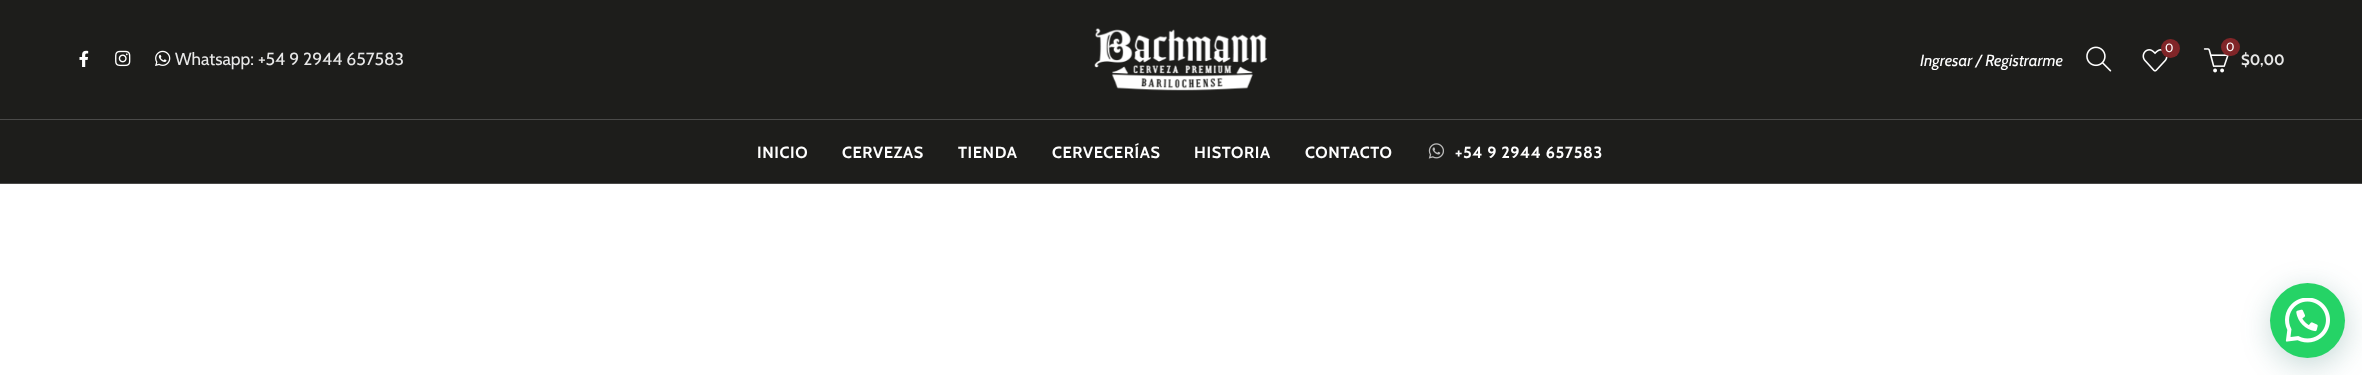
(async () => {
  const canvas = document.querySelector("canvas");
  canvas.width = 2362;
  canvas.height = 375;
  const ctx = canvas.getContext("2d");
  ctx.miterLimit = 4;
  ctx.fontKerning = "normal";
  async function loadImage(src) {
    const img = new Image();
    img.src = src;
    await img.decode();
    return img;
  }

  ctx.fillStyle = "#ffffff";
  ctx.fillRect(0, 0, 2362, 375);
  ctx.fillStyle = "#1d1d1b";
  ctx.fillRect(0, 0, 2362, 183);
  ctx.drawImage(await loadImage("img/1.png"), 79, 50, 10, 17);
  ctx.drawImage(await loadImage("img/2.png"), 115, 50, 16, 17);
  ctx.drawImage(await loadImage("img/3.png"), 155, 50, 16, 16);
  ctx.drawImage(await loadImage("img/4.png"), 1094, 28, 174, 63);
  ctx.drawImage(await loadImage("img/5.png"), 2086, 46, 26, 26);
  ctx.drawImage(await loadImage("img/6.png"), 2142, 49, 26, 23);
  ctx.fillStyle = "#802528";
  ctx.beginPath();
  ctx.arc(2170.5, 48.5, 9.5, 0, Math.PI * 2);
  ctx.fill();
  ctx.drawImage(await loadImage("img/7.png"), 2203, 48, 26, 25);
  ctx.beginPath();
  ctx.roundRect(2221, 38, 19, 18, 9);
  ctx.fill();
  ctx.fillStyle = "#4a4a49";
  ctx.fillRect(0, 119, 2362, 1);
  ctx.fillRect(0, 183, 2362, 1);
  ctx.drawImage(await loadImage("img/8.png"), 1428, 143, 16, 16);
  ctx.fillStyle = "rgba(7, 94, 84, 0.24)";
  ctx.filter = "blur(15px)";
  ctx.beginPath();
  ctx.roundRect(2271, 290, 75, 75, 37.5);
  ctx.fill();
  ctx.filter = "none";
  ctx.fillStyle = "#25d366";
  ctx.beginPath();
  ctx.arc(2307.5, 320.5, 37.5, 0, Math.PI * 2);
  ctx.fill();
  ctx.drawImage(await loadImage("img/9.png"), 2285, 298, 45, 45);
  ctx.font = "17.5px Cabin";
  ctx.fillStyle = "#e8e8e8";
  ctx.fillText("Whatsapp: +54 9 2944 657583", 175, 65);
  ctx.font = "italic 16.25px Cabin";
  ctx.fillStyle = "#ffffff";
  ctx.fillText("Ingresar / Registrarme", 1920, 66);
  ctx.font = "12px Cabin";
  ctx.fillText("0", 2165, 52);
  ctx.fillText("0", 2226, 51);
  ctx.font = "bold 15px Cabin";
  ctx.fillStyle = "#e8e8e8";
  ctx.fillText("$0,00", 2241, 65);
  ctx.letterSpacing = "0.6px";
  ctx.font = "bold 16.25px Cabin";
  ctx.fillStyle = "#ffffff";
  for (const [text, x, y] of [
    ["INICIO", 757, 158],
    ["CERVEZAS", 842, 158],
    ["TIENDA", 958, 158],
    ["CERVECERÍAS", 1052, 158],
    ["HISTORIA", 1194, 158],
    ["CONTACTO", 1305, 158],
    ["+54 9 2944 657583", 1455, 158],
  ]) {
    ctx.fillText(text, x, y);
  }
})();
